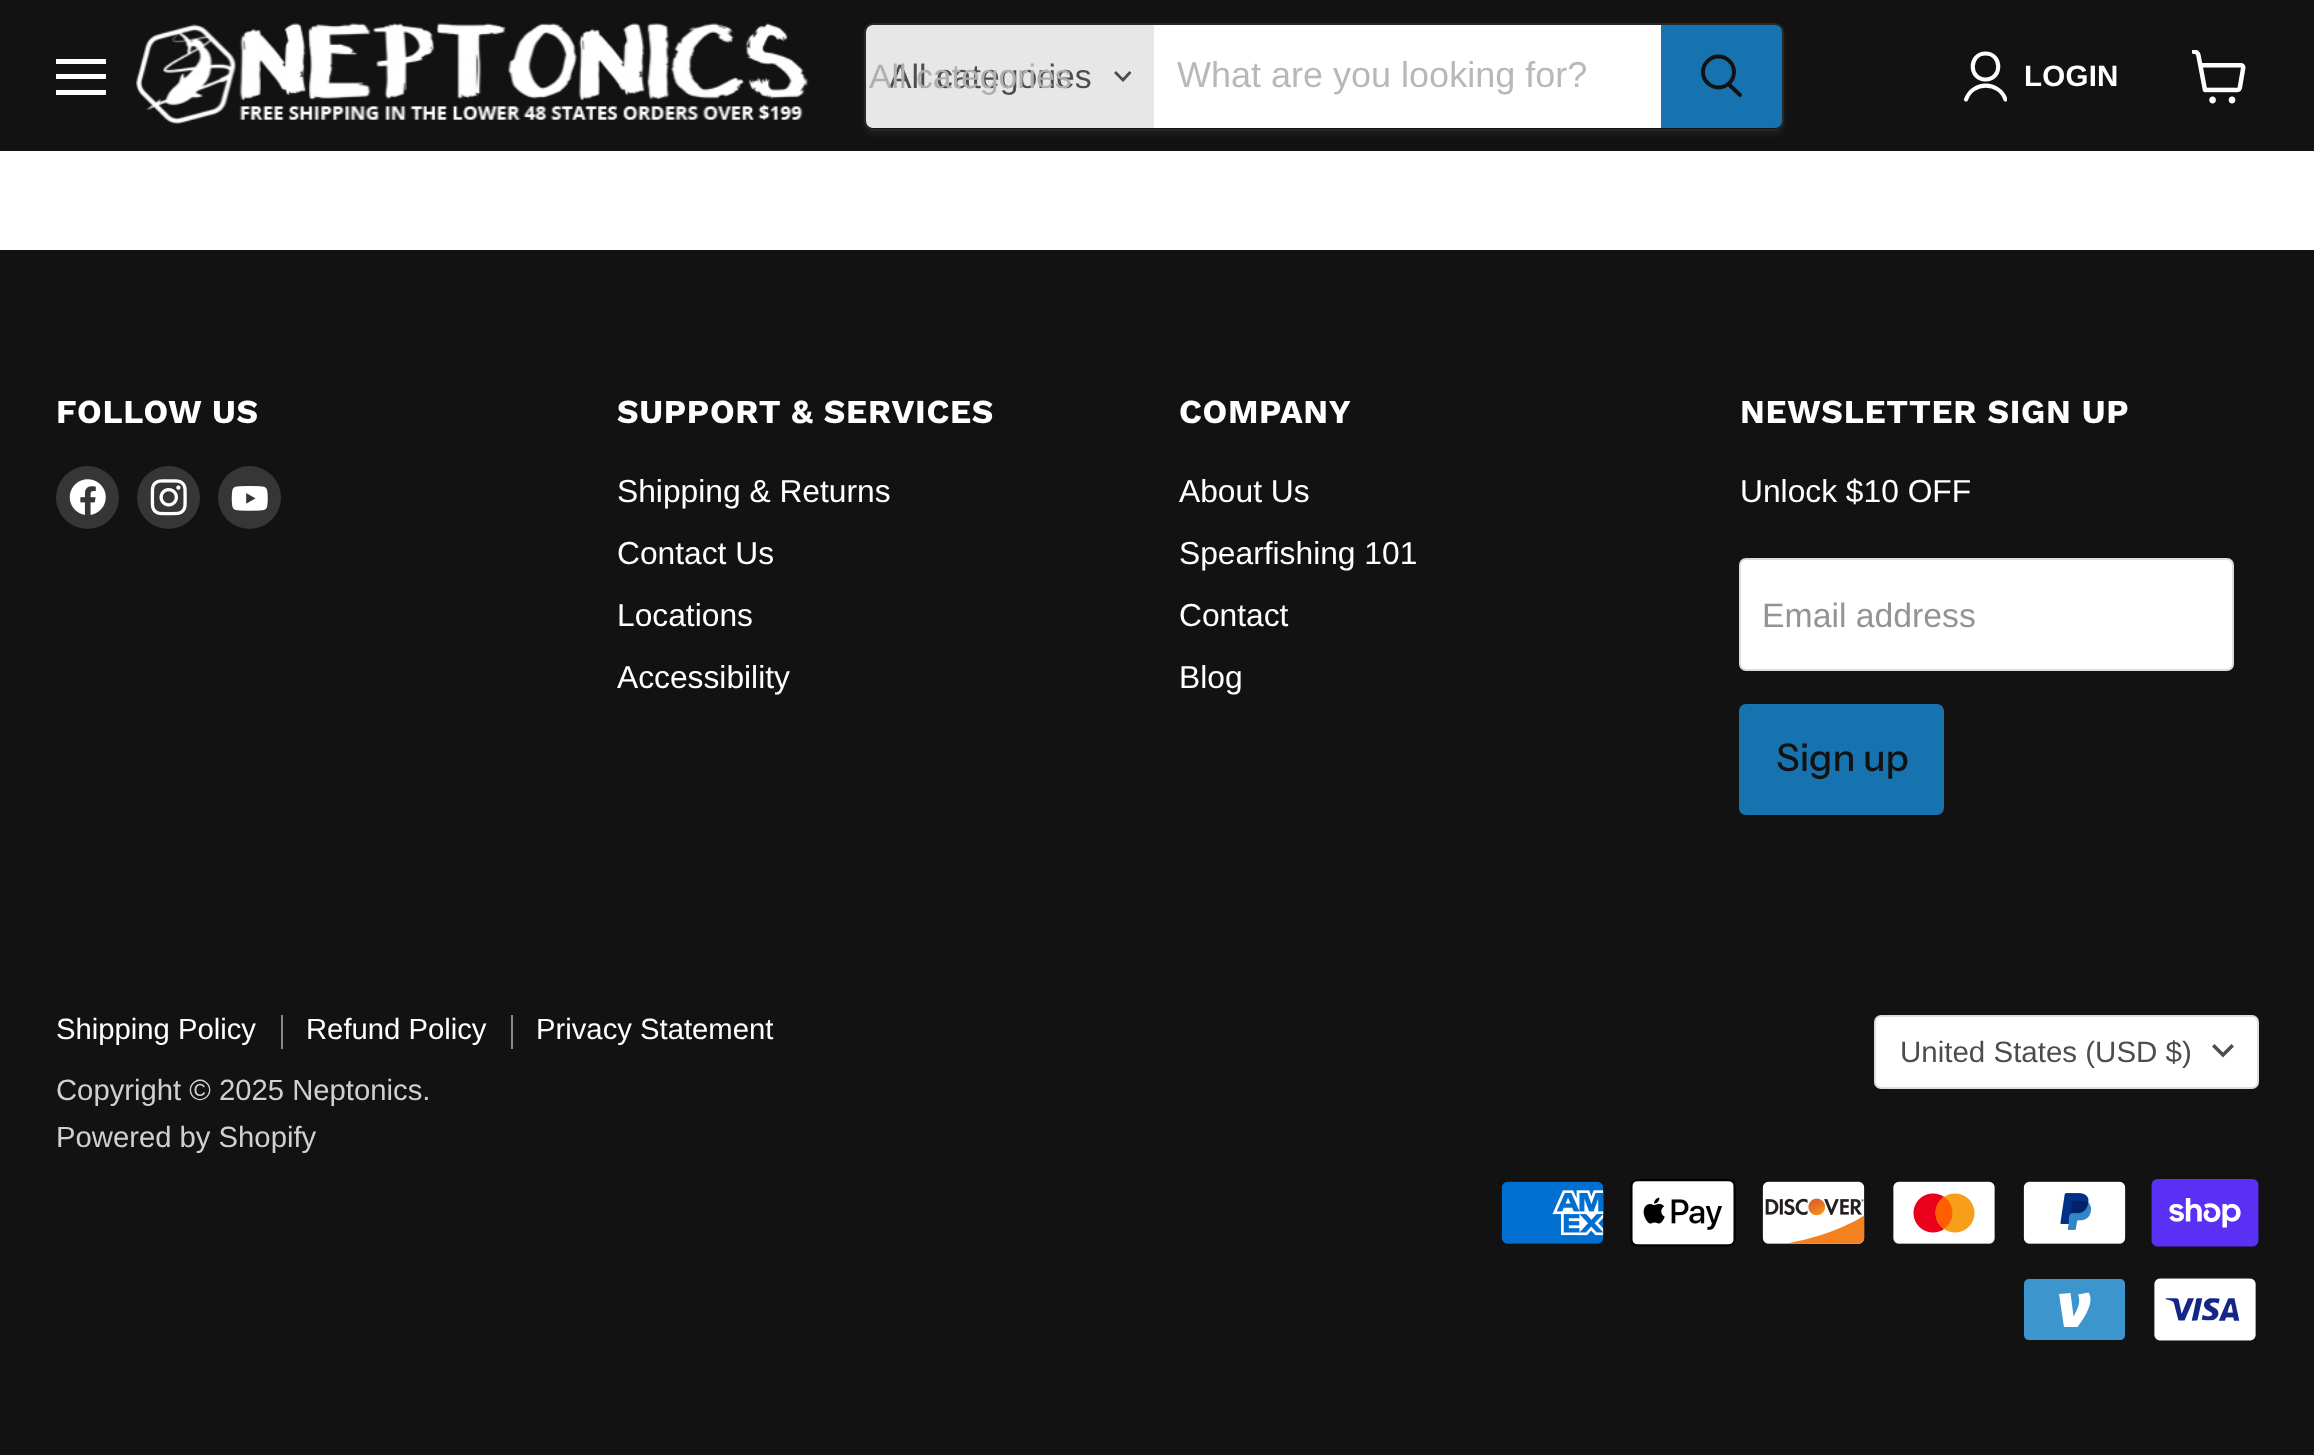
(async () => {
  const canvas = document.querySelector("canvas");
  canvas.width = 2314;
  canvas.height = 1455;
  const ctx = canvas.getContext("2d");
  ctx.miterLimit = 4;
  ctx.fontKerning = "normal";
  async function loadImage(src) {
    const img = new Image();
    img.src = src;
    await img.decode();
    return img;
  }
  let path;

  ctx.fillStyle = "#ffffff";
  ctx.fillRect(0, 0, 2314, 1455);
  for (const [x, y, w, h, color] of [
    [0, 0, 2314, 151, "#121212"],
    [56, 59, 50, 5, "#ffffff"],
    [56, 74, 50, 5, "#ffffff"],
    [56, 90, 50, 5, "#ffffff"],
  ]) {
    ctx.fillStyle = color;
    ctx.fillRect(x, y, w, h);
  }
  ctx.drawImage(await loadImage("img/1.png"), 136, 23, 673, 101);
  ctx.save();
  path = new Path2D("M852 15H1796V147H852ZM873 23H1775C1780 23 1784 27 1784 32V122C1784 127 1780 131 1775 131H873C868 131 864 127 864 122V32C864 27 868 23 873 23Z");
  ctx.clip(path, "evenodd");
  ctx.fillStyle = "rgba(128, 128, 128, 0.11)";
  ctx.filter = "blur(3.5px)";
  ctx.beginPath();
  ctx.roundRect(864, 27, 920, 108, 9);
  ctx.fill();
  ctx.filter = "none";
  ctx.restore();
  ctx.beginPath();
  ctx.roundRect(865, 24, 918, 106, 8);
  ctx.strokeStyle = "rgba(128, 128, 128, 0.2)";
  ctx.lineWidth = 2;
  ctx.stroke();
  ctx.fillStyle = "#e7e7e7";
  ctx.beginPath();
  ctx.roundRect(866, 25, 288, 103, [7, 0, 0, 7]);
  ctx.fill();
  path = new Path2D("M1123 80L1129.5 73M1123 80L1116 73");
  ctx.strokeStyle = "#4d4d4d";
  ctx.lineWidth = 2.8;
  ctx.lineCap = "square";
  ctx.stroke(path);
  ctx.fillStyle = "#ffffff";
  ctx.fillRect(1154, 25, 507, 103);
  ctx.fillStyle = "#1773b0";
  ctx.beginPath();
  ctx.roundRect(1662, 26, 119, 101, [0, 6, 6, 0]);
  ctx.fill();
  ctx.strokeStyle = "#1773b0";
  ctx.lineWidth = 2;
  ctx.stroke();
  path = new Path2D("M1740 95L1729 84.5");
  ctx.strokeStyle = "#121212";
  ctx.lineWidth = 3.9;
  ctx.lineCap = "round";
  ctx.stroke(path);
  ctx.beginPath();
  ctx.arc(1718.5, 72, 15.5, 0, Math.PI * 2);
  ctx.stroke();
  path = new Path2D("M1985.5 79.5C2002.5 79.5 2002.5 53.5 1985.5 53.5C1968.5 53.5 1968.5 79.5 1985.5 79.5Z");
  ctx.strokeStyle = "#ffffff";
  ctx.lineWidth = 4.1;
  ctx.lineJoin = "round";
  ctx.stroke(path);
  ctx.save();
  ctx.beginPath();
  ctx.rect(1962, 50, 45, 54);
  ctx.clip();
  path = new Path2D("M2005.5 99.5C1999 81 1972.5 81 1966 99.5");
  ctx.stroke(path);
  ctx.restore();
  ctx.drawImage(await loadImage("img/2.png"), 2192, 50, 54, 54);
  ctx.fillStyle = "#121212";
  ctx.fillRect(0, 250, 2314, 1205);
  ctx.fillStyle = "#363636";
  ctx.beginPath();
  ctx.arc(87.5, 497.5, 31.5, 0, Math.PI * 2);
  ctx.fill();
  ctx.drawImage(await loadImage("img/3.png"), 69, 479, 37, 36);
  ctx.beginPath();
  ctx.arc(168.5, 497.5, 31.5, 0, Math.PI * 2);
  ctx.fill();
  ctx.drawImage(await loadImage("img/4.png"), 150, 479, 37, 37);
  ctx.beginPath();
  ctx.arc(249.5, 497.5, 31.5, 0, Math.PI * 2);
  ctx.fill();
  ctx.drawImage(await loadImage("img/5.png"), 231, 486, 37, 25);
  ctx.fillStyle = "#ffffff";
  ctx.beginPath();
  ctx.roundRect(1740, 559, 493, 111, 6);
  ctx.fill();
  ctx.strokeStyle = "#dddddd";
  ctx.lineWidth = 2;
  ctx.lineJoin = "miter";
  ctx.stroke();
  ctx.fillStyle = "#1773b0";
  ctx.beginPath();
  ctx.roundRect(1740, 705, 203, 109, 6);
  ctx.fill();
  ctx.strokeStyle = "#1773b0";
  ctx.stroke();
  ctx.fillStyle = "#898989";
  ctx.fillRect(281, 1015, 2, 34);
  ctx.fillRect(511, 1015, 2, 34);
  ctx.fillStyle = "#ffffff";
  ctx.beginPath();
  ctx.roundRect(1875, 1016, 383, 72, 6);
  ctx.fill();
  ctx.strokeStyle = "#dddddd";
  ctx.stroke();
  path = new Path2D("M2223 1055L2231.5 1046.5M2223 1055L2214.5 1046.5");
  ctx.strokeStyle = "#4d4d4d";
  ctx.lineWidth = 3.5;
  ctx.lineCap = "square";
  ctx.stroke(path);
  ctx.drawImage(await loadImage("img/6.png"), 1501, 1181, 103, 63);
  ctx.drawImage(await loadImage("img/7.png"), 1630, 1179, 106, 68);
  ctx.drawImage(await loadImage("img/8.png"), 1762, 1181, 103, 63);
  ctx.drawImage(await loadImage("img/9.png"), 1893, 1181, 102, 63);
  ctx.drawImage(await loadImage("img/10.png"), 2023, 1181, 103, 63);
  ctx.drawImage(await loadImage("img/11.png"), 2151, 1179, 108, 68);
  ctx.fillStyle = "#3d95ce";
  path = new Path2D("M2120 1279C2123 1279 2125 1281 2125 1284V1335C2125 1338 2123 1340 2120 1340H2030C2026 1340 2024 1338 2024 1335V1284C2024 1281 2026 1279 2030 1279H2120");
  ctx.fill(path, "evenodd");
  ctx.fillStyle = "#ffffff";
  path = new Path2D("M2090.5 1299.5C2090.5 1308 2083.5 1319 2077.5 1327H2064L2059 1294L2070.5 1293L2073.5 1316.5C2077 1310.5 2081.5 1301.5 2078 1294.5L2088.5 1292.5C2090 1294.5 2090.5 1296.5 2090.5 1299.5Z");
  ctx.fill(path);
  ctx.drawImage(await loadImage("img/12.png"), 2154, 1278, 102, 63);
  ctx.font = "33.75px Liberation Sans";
  ctx.fillStyle = "#4d4d4d";
  ctx.fillText("All categories", 889, 88);
  ctx.fillStyle = "#afafaf";
  ctx.fillText("All categories", 869, 88);
  ctx.font = "36px Liberation Sans";
  ctx.fillStyle = "#b8b8b8";
  ctx.fillText("What are you looking for?", 1177, 87);
  ctx.letterSpacing = "0.25px";
  ctx.font = "bold 29.5px Liberation Sans";
  ctx.fillStyle = "#ffffff";
  ctx.fillText("LOGIN", 2024, 86);
  ctx.letterSpacing = "0.7px";
  ctx.font = "bold 33.5px Work Sans";
  ctx.fillText("FOLLOW US", 56, 423);
  ctx.fillText("SUPPORT & SERVICES", 617, 423);
  ctx.letterSpacing = "0px";
  ctx.font = "31.75px Liberation Sans";
  for (const [text, x, y] of [
    ["Shipping & Returns", 617, 502],
    ["Contact Us", 617, 564],
    ["Locations", 617, 626],
    ["Accessibility", 617, 688],
  ]) {
    ctx.fillText(text, x, y);
  }
  ctx.letterSpacing = "0.7px";
  ctx.font = "bold 33.5px Work Sans";
  ctx.fillText("COMPANY", 1179, 423);
  ctx.letterSpacing = "0px";
  ctx.font = "31.75px Liberation Sans";
  for (const [text, x, y] of [
    ["About Us", 1179, 502],
    ["Spearfishing 101", 1179, 564],
    ["Contact", 1179, 626],
    ["Blog", 1179, 688],
  ]) {
    ctx.fillText(text, x, y);
  }
  ctx.letterSpacing = "0.7px";
  ctx.font = "bold 33.5px Work Sans";
  ctx.fillText("NEWSLETTER SIGN UP", 1740, 423);
  ctx.letterSpacing = "0px";
  ctx.font = "31.75px Liberation Sans";
  ctx.fillText("Unlock $10 OFF", 1740, 502);
  ctx.font = "33.75px Liberation Sans";
  ctx.fillStyle = "#949494";
  ctx.fillText("Email address", 1762, 627);
  ctx.font = "500 38px Instrument Sans";
  ctx.fillStyle = "#121212";
  ctx.fillText("Sign up", 1776, 771);
  ctx.font = "29.25px Liberation Sans";
  ctx.fillStyle = "#ffffff";
  for (const [text, x, y] of [
    ["Shipping Policy", 56, 1039],
    ["Refund Policy", 306, 1039],
    ["Privacy Statement", 536, 1039],
  ]) {
    ctx.fillText(text, x, y);
  }
  ctx.fillStyle = "#d0d0d0";
  ctx.fillText("Copyright © 2025 Neptonics.", 56, 1100);
  ctx.fillText("Powered by Shopify", 56, 1147);
  ctx.font = "29.5px Liberation Sans";
  ctx.fillStyle = "#4d4d4d";
  ctx.fillText("United States (USD $)", 1900, 1062);
})();
